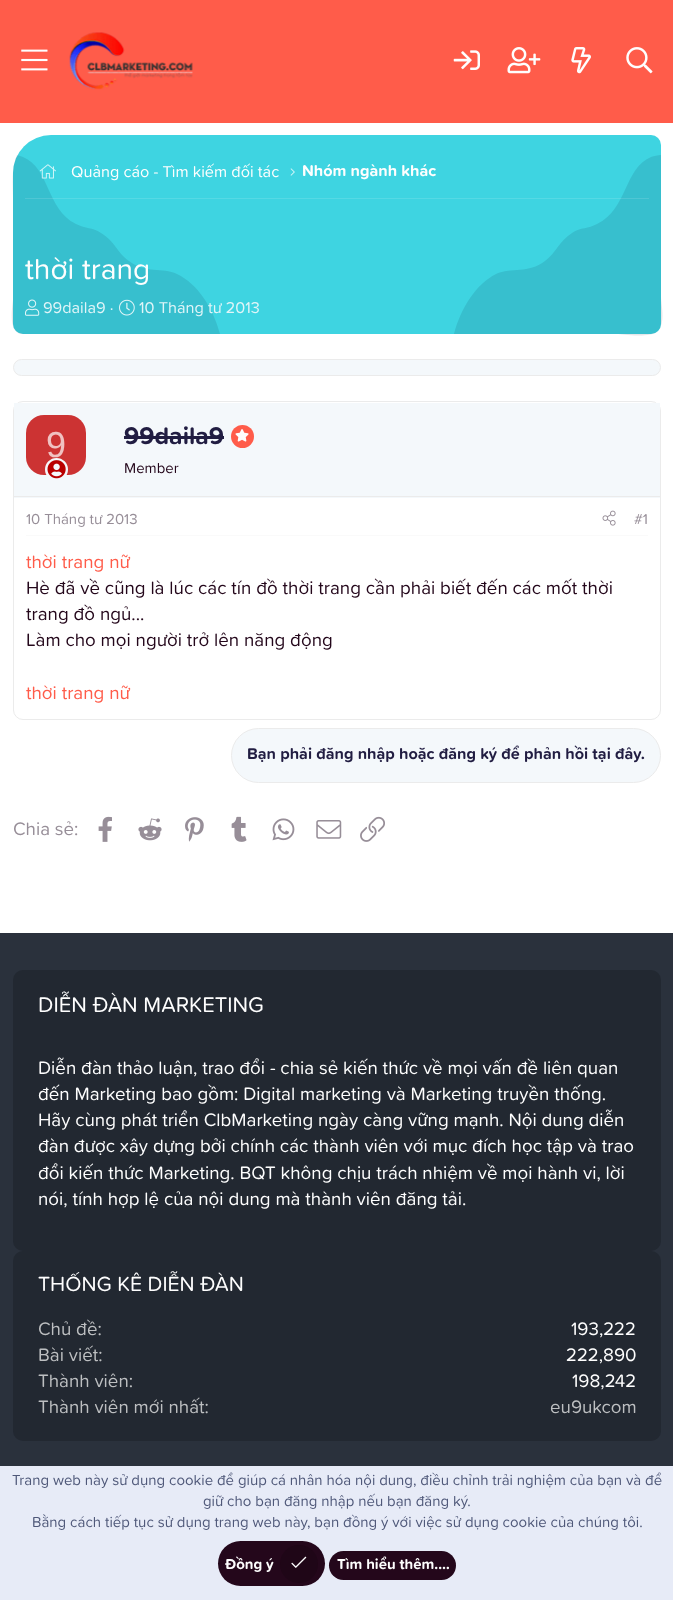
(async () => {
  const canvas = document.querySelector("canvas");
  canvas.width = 673;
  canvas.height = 1600;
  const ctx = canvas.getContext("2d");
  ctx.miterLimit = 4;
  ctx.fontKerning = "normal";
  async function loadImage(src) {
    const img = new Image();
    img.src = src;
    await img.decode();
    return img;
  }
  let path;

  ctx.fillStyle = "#ffffff";
  ctx.fillRect(0, 0, 673, 1600);
  ctx.fillStyle = "#ff5c4a";
  ctx.fillRect(0, 0, 673, 123);
  ctx.drawImage(await loadImage("img/1.png"), 21, 49, 27, 22);
  ctx.drawImage(await loadImage("img/2.png"), 69, 32, 124, 58);
  ctx.drawImage(await loadImage("img/3.png"), 453, 50, 27, 20);
  ctx.drawImage(await loadImage("img/4.png"), 507, 47, 34, 27);
  ctx.drawImage(await loadImage("img/5.png"), 571, 47, 20, 27);
  ctx.drawImage(await loadImage("img/6.png"), 626, 47, 27, 27);
  ctx.fillStyle = "#3ed4e1";
  ctx.beginPath();
  ctx.roundRect(13, 135, 648, 199, [38, 10, 10, 10]);
  ctx.fill();
  ctx.fillStyle = "rgba(4, 5, 38, 0.1)";
  path = new Path2D("M177 274C198 284 213 308 220 334H21C7 331 13 304 13 299V198C13 185 11 168 17 155L23 157C50 168 46 209 76 224C86 229 92 227 101 233C116 242 116 252 129 261C146 274 162 267 177 274Z");
  ctx.fill(path);
  path = new Path2D("M496 274C512 267 528 274 545 261C557 252 558 242 572 233C581 227 588 229 597 224C628 209 624 168 651 157C654 156 658 155 661 155V296C661 305 666 322 658 331C651 339 619 334 618 334H454C461 308 476 284 496 274Z");
  ctx.fill(path);
  ctx.fillStyle = "rgba(255, 255, 255, 0.12)";
  ctx.fillRect(25, 198, 624, 1);
  ctx.drawImage(await loadImage("img/7.png"), 39, 164, 17, 15);
  ctx.drawImage(await loadImage("img/8.png"), 290, 168, 5, 8);
  ctx.drawImage(await loadImage("img/9.png"), 25, 299, 15, 17);
  ctx.drawImage(await loadImage("img/10.png"), 119, 299, 16, 17);
  ctx.fillStyle = "#f4f8fb";
  ctx.beginPath();
  ctx.roundRect(13.5, 359.5, 647, 16, 8);
  ctx.fill();
  ctx.strokeStyle = "#ebebeb";
  ctx.stroke();
  ctx.beginPath();
  ctx.roundRect(13.5, 401.5, 647, 318, 9.5);
  ctx.stroke();
  ctx.fillRect(14, 403, 646, 95);
  ctx.fillStyle = "#ebebeb";
  ctx.fillRect(14, 496, 646, 1);
  ctx.fillStyle = "#cc3333";
  ctx.beginPath();
  ctx.roundRect(26, 415, 60, 60, 18);
  ctx.fill();
  ctx.fillStyle = "#f4f8fb";
  ctx.beginPath();
  ctx.arc(56.5, 469.5, 10, 0, Math.PI * 2);
  ctx.fill();
  ctx.strokeStyle = "#f4f8fb";
  ctx.lineWidth = 3;
  ctx.stroke();
  ctx.drawImage(await loadImage("img/11.png"), 47, 460, 19, 19);
  ctx.fillStyle = "#211d42";
  ctx.fillRect(124, 436, 100, 3);
  ctx.fillStyle = "#ff5c4a";
  ctx.beginPath();
  ctx.arc(242.5, 436.5, 11.5, 0, Math.PI * 2);
  ctx.fill();
  ctx.drawImage(await loadImage("img/12.png"), 235, 429, 14, 13);
  ctx.fillStyle = "#fafafa";
  ctx.fillRect(26, 535, 622, 1);
  ctx.drawImage(await loadImage("img/13.png"), 602, 510, 14, 16);
  ctx.fillStyle = "#f4f8fb";
  ctx.beginPath();
  ctx.roundRect(231.5, 728.5, 429, 54, 27);
  ctx.fill();
  ctx.strokeStyle = "#ebebeb";
  ctx.lineWidth = 1;
  ctx.stroke();
  ctx.drawImage(await loadImage("img/14.png"), 98, 816, 14, 26);
  ctx.drawImage(await loadImage("img/15.png"), 138, 818, 24, 23);
  ctx.drawImage(await loadImage("img/16.png"), 185, 817, 19, 25);
  ctx.drawImage(await loadImage("img/17.png"), 231, 816, 16, 26);
  ctx.drawImage(await loadImage("img/18.png"), 272, 818, 23, 23);
  ctx.drawImage(await loadImage("img/19.png"), 316, 820, 26, 19);
  ctx.drawImage(await loadImage("img/20.png"), 360, 816, 25, 26);
  ctx.fillStyle = "#2a313c";
  ctx.fillRect(0, 933, 673, 533);
  ctx.fillStyle = "#222831";
  ctx.beginPath();
  ctx.roundRect(13, 970, 648, 281, 10);
  ctx.fill();
  ctx.beginPath();
  ctx.roundRect(13, 1251, 648, 190, 10);
  ctx.fill();
  ctx.fillStyle = "#e7ebf7";
  ctx.fillRect(0, 1466, 673, 134);
  ctx.fillStyle = "#24071b";
  ctx.beginPath();
  ctx.roundRect(218, 1541, 107, 45, 22.5);
  ctx.fill();
  ctx.fillStyle = "#1f0617";
  ctx.beginPath();
  ctx.arc(299, 1564, 19, 0, Math.PI * 2);
  ctx.fill();
  ctx.drawImage(await loadImage("img/21.png"), 291, 1556, 16, 12);
  ctx.fillStyle = "#24071b";
  ctx.beginPath();
  ctx.roundRect(329, 1551, 127, 29, 14.5);
  ctx.fill();
  ctx.font = "16.25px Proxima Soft";
  ctx.fillStyle = "#fefefe";
  ctx.fillText("Quảng cáo - Tìm kiếm đối tác", 71, 177);
  ctx.font = "bold 16.25px Proxima Soft";
  ctx.fillText("Nhóm ngành khác", 302, 176);
  ctx.font = "30px Proxima Soft";
  ctx.fillText("thời trang", 25, 279);
  ctx.font = "16.25px Proxima Soft";
  ctx.fillStyle = "#e1f5f8";
  ctx.fillText("99daila9 ·", 43, 313);
  ctx.fillText("10 Tháng tư 2013", 139, 313);
  ctx.font = "36px Liberation Sans";
  ctx.fillStyle = "#f0c2c2";
  ctx.fillText("9", 46, 457);
  ctx.font = "bold 25px Proxima Soft";
  ctx.fillStyle = "#211d42";
  ctx.fillText("99daila9", 124, 444);
  ctx.font = "15px Proxima Soft";
  ctx.fillStyle = "#24071b";
  ctx.fillText("Member", 124, 473);
  ctx.fillStyle = "#978e98";
  ctx.fillText("10 Tháng tư 2013", 26, 524);
  ctx.fillText("#1", 634, 524);
  ctx.font = "18.75px Proxima Soft";
  ctx.fillStyle = "#ff5c4a";
  ctx.fillText("thời trang nữ", 26, 568);
  ctx.fillStyle = "#24071b";
  for (const [text, x, y] of [
    ["Hè đã về cũng là lúc các tín đồ thời trang cần phải biết đến các mốt thời", 26, 594],
    ["trang đồ ngủ...", 26, 620],
    ["Làm cho mọi người trở lên năng động", 26, 646],
  ]) {
    ctx.fillText(text, x, y);
  }
  ctx.fillStyle = "#ff5c4a";
  ctx.fillText("thời trang nữ", 26, 699);
  ctx.font = "bold 16.25px Proxima Soft";
  ctx.fillStyle = "#211d42";
  ctx.fillText("Bạn phải đăng nhập hoặc đăng ký để phản hồi tại đây.", 247, 759);
  ctx.font = "18.75px Proxima Soft";
  ctx.fillStyle = "#978e98";
  ctx.fillText("Chia sẻ:", 13, 835);
  ctx.font = "22px Proxima Soft";
  ctx.fillStyle = "#fefefe";
  ctx.fillText("DIỄN ĐÀN MARKETING", 38, 1012);
  ctx.font = "18.75px Proxima Soft";
  for (const [text, x, y] of [
    ["Diễn đàn thảo luận, trao đổi - chia sẻ kiến thức về mọi vấn đề liên quan", 38, 1074],
    ["đến Marketing bao gồm: Digital marketing và Marketing truyền thống.", 38, 1100],
    ["Hãy cùng phát triển ClbMarketing ngày càng vững mạnh. Nội dung diễn", 38, 1126],
    ["đàn được xây dựng bởi chính các thành viên với mục đích học tập và trao", 38, 1152],
    ["đổi kiến thức Marketing. BQT không chịu trách nhiệm về mọi hành vi, lời", 38, 1179],
    ["nói, tính hợp lệ của nội dung mà thành viên đăng tải.", 38, 1205],
  ]) {
    ctx.fillText(text, x, y);
  }
  ctx.font = "21.25px Proxima Soft";
  ctx.fillText("THỐNG KÊ DIỄN ĐÀN", 38, 1291);
  ctx.font = "18.75px Proxima Soft";
  ctx.fillStyle = "#bdbfc1";
  ctx.fillText("Chủ đề:", 38, 1335);
  ctx.fillStyle = "#fefefe";
  ctx.fillText("193,222", 571, 1335);
  ctx.fillStyle = "#bdbfc1";
  ctx.fillText("Bài viết:", 38, 1361);
  ctx.fillStyle = "#fefefe";
  ctx.fillText("222,890", 566, 1361);
  ctx.fillStyle = "#bdbfc1";
  ctx.fillText("Thành viên:", 38, 1387);
  ctx.fillStyle = "#fefefe";
  ctx.fillText("198,242", 572, 1387);
  ctx.fillStyle = "#bdbfc1";
  ctx.fillText("Thành viên mới nhất:", 38, 1413);
  ctx.fillText("eu9ukcom", 550, 1413);
  ctx.font = "15px Proxima Soft";
  ctx.fillStyle = "#4f5879";
  for (const [text, x, y] of [
    ["Trang web này sử dụng cookie để giúp cá nhân hóa nội dung, điều chỉnh trải nghiệm của bạn và để", 12, 1485],
    ["giữ cho bạn đăng nhập nếu bạn đăng ký.", 203, 1506],
    ["Bằng cách tiếp tục sử dụng trang web này, bạn đồng ý với việc sử dụng cookie của chúng tôi.", 32, 1527],
  ]) {
    ctx.fillText(text, x, y);
  }
  ctx.font = "bold 15px Proxima Soft";
  ctx.fillStyle = "#fefefe";
  ctx.fillText("Đồng ý", 225, 1569);
  ctx.fillText("Tìm hiểu thêm.…", 337, 1569);
})();
